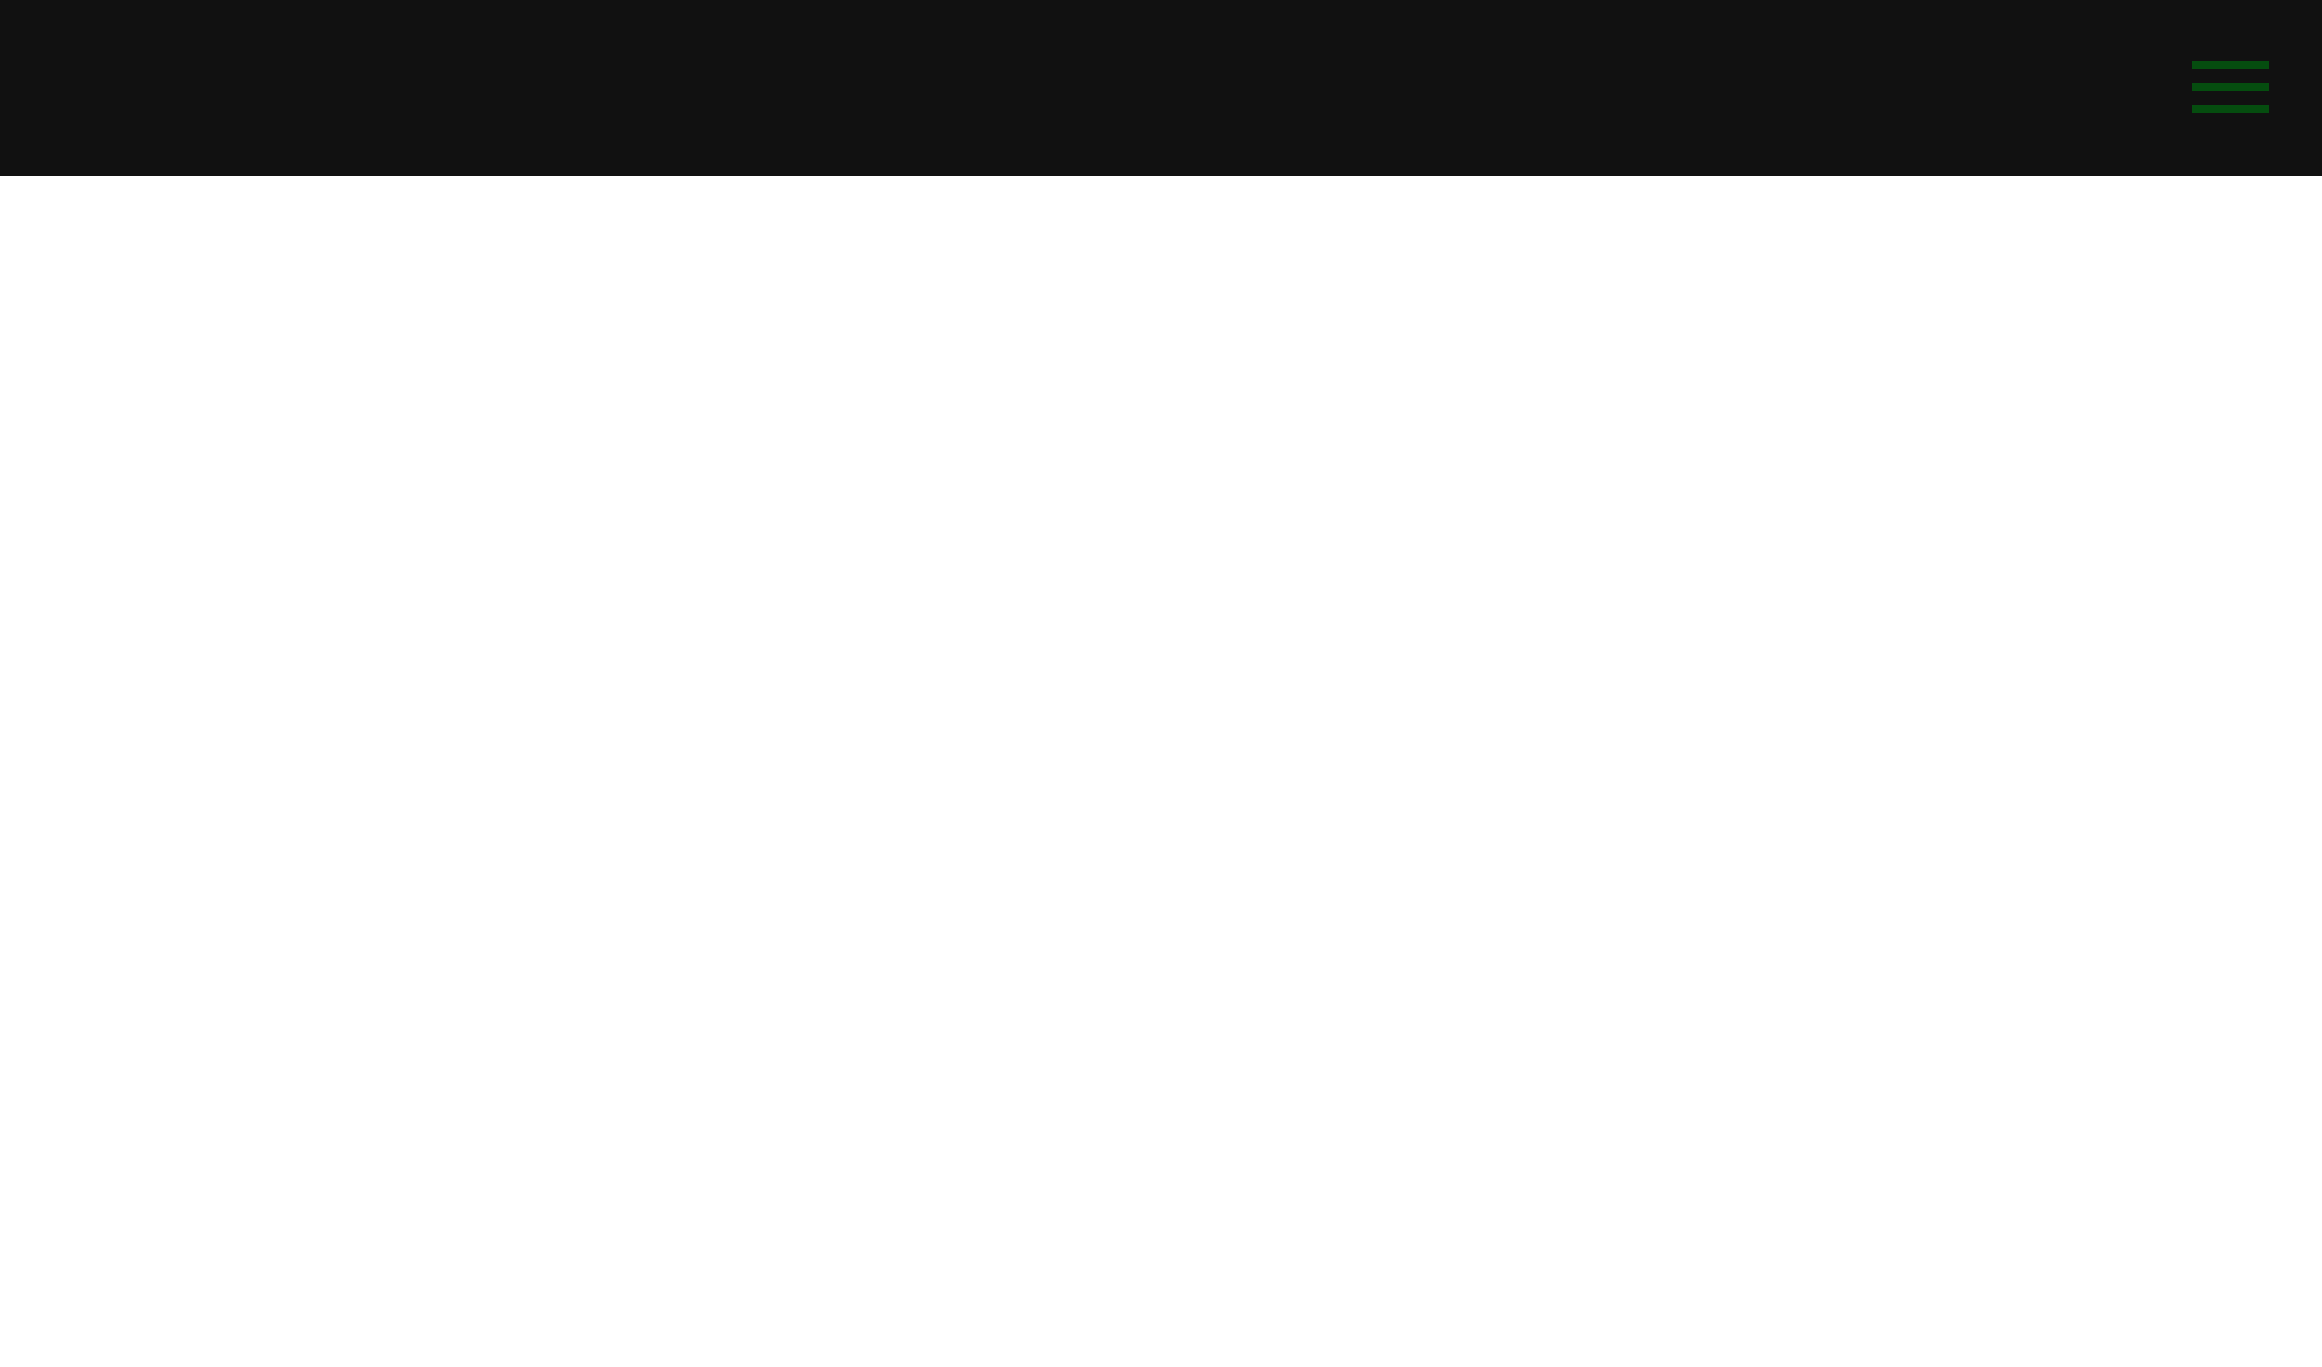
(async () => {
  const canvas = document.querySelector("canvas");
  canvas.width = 2322;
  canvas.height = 1367;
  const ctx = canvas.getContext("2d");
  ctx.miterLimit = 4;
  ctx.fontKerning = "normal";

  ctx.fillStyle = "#ffffff";
  ctx.fillRect(0, 0, 2322, 1367);
  for (const [x, y, w, h, color] of [
    [0, 0, 2322, 176, "#111111"],
    [2192, 61, 77, 8, "#054d0f"],
    [2192, 83, 77, 8, "#054d0f"],
    [2192, 105, 77, 8, "#054d0f"],
  ]) {
    ctx.fillStyle = color;
    ctx.fillRect(x, y, w, h);
  }
})();
